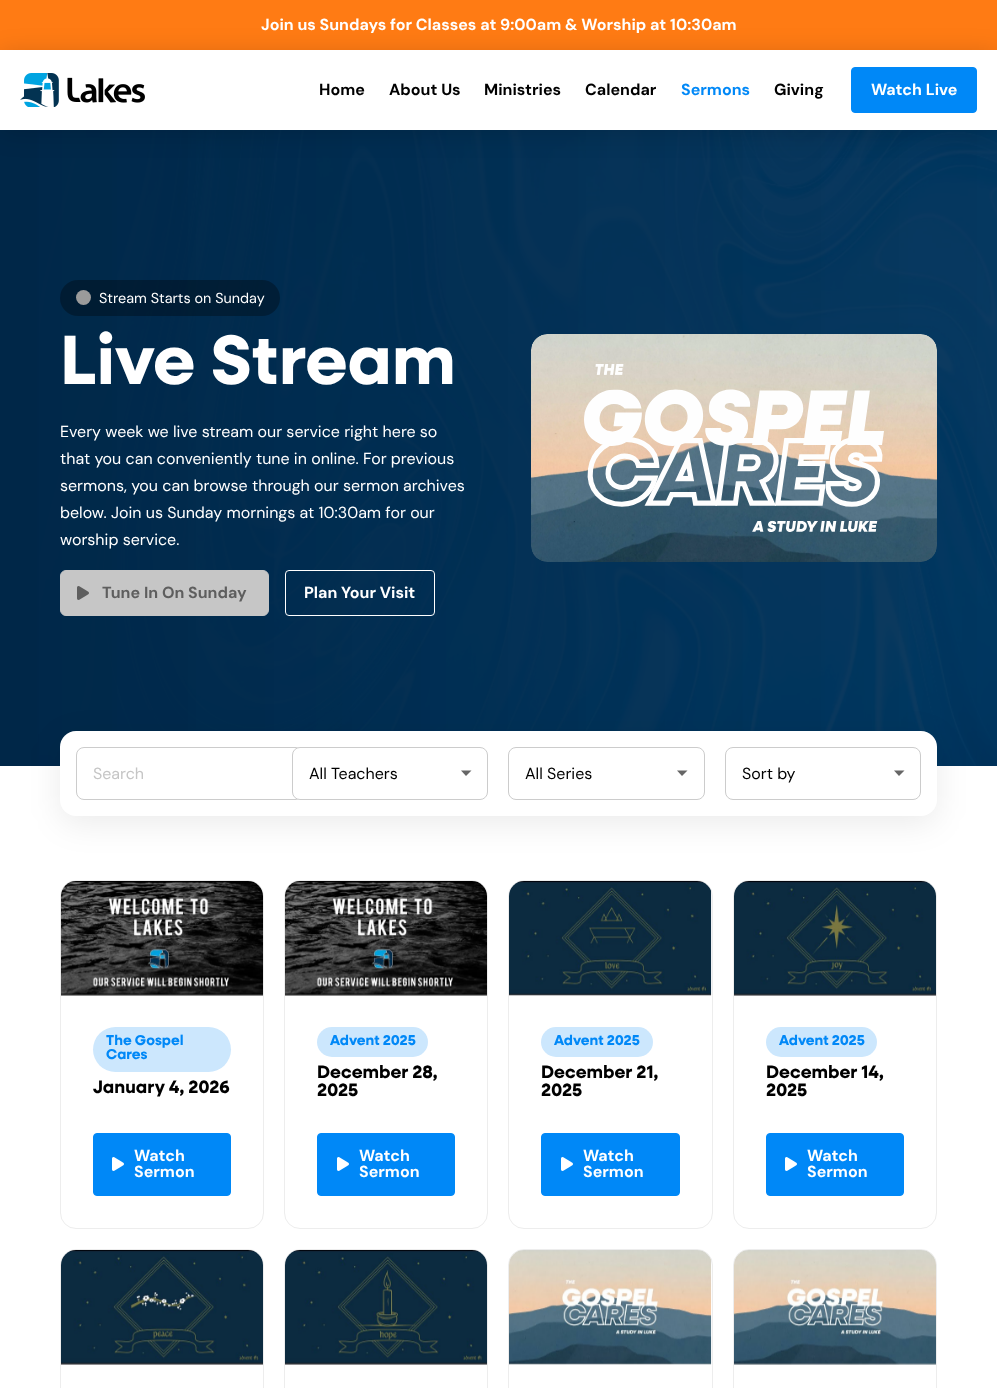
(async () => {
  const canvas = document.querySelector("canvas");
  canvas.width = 997;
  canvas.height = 1388;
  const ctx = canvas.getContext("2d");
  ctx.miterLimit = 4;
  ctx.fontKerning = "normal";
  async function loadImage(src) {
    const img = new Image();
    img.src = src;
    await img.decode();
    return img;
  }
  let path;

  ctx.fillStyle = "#ffffff";
  ctx.fillRect(0, 0, 997, 1388);
  ctx.fillStyle = "#ff7b14";
  ctx.fillRect(0, 0, 997, 50);
  ctx.drawImage(await loadImage("img/2.png"), 0, 130, 997, 636);
  ctx.fillStyle = "rgba(0, 0, 0, 0.15)";
  ctx.filter = "blur(12.5px)";
  ctx.beginPath();
  ctx.rect(0, 53, 997, 80);
  ctx.fill();
  ctx.filter = "none";
  ctx.fillStyle = "#ffffff";
  ctx.fillRect(0, 50, 997, 80);
  ctx.drawImage(await loadImage("img/1.png"), 20, 73, 125, 34);
  ctx.fillStyle = "#0088f7";
  ctx.beginPath();
  ctx.roundRect(851.5, 67.5, 125, 45, 3.5);
  ctx.fill();
  ctx.strokeStyle = "#0088f7";
  ctx.stroke();
  ctx.fillStyle = "rgba(0, 0, 0, 0.3)";
  ctx.beginPath();
  ctx.roundRect(60, 280, 220, 36, 18);
  ctx.fill();
  ctx.fillStyle = "#9b9b9b";
  ctx.beginPath();
  ctx.arc(83.5, 297.5, 7.5, 0, Math.PI * 2);
  ctx.fill();
  ctx.fillStyle = "#c6c6c6";
  ctx.beginPath();
  ctx.roundRect(60.5, 570.5, 208, 45, 5.5);
  ctx.fill();
  ctx.strokeStyle = "#c6c6c6";
  ctx.stroke();
  ctx.drawImage(await loadImage("img/3.png"), 77, 586, 12, 14);
  ctx.beginPath();
  ctx.roundRect(285.5, 570.5, 149, 45, 3.5);
  ctx.strokeStyle = "#ffffff";
  ctx.stroke();
  ctx.drawImage(await loadImage("img/4.png"), 531, 334, 406, 228);
  ctx.drawImage(await loadImage("img/5.png"), 584, 364, 300, 168);
  ctx.fillStyle = "rgba(0, 0, 0, 0.08)";
  ctx.filter = "blur(16px)";
  ctx.beginPath();
  ctx.roundRect(60, 739, 877, 85, 16);
  ctx.fill();
  ctx.filter = "none";
  ctx.fillStyle = "#ffffff";
  ctx.beginPath();
  ctx.roundRect(60, 731, 877, 85, 16);
  ctx.fill();
  ctx.beginPath();
  ctx.roundRect(76.5, 747.5, 239, 52, 7.5);
  ctx.strokeStyle = "#cccccc";
  ctx.stroke();
  ctx.beginPath();
  ctx.roundRect(292, 747, 196, 53, 8);
  ctx.fill();
  ctx.fillStyle = "#666666";
  path = new Path2D("M466 776L461 770.5H471.5Z");
  ctx.fill(path);
  ctx.beginPath();
  ctx.roundRect(292.5, 747.5, 195, 52, 7.5);
  ctx.stroke();
  path = new Path2D("M682 776L677 770.5H687.5Z");
  ctx.fill(path);
  ctx.beginPath();
  ctx.roundRect(508.5, 747.5, 196, 52, 7.5);
  ctx.stroke();
  path = new Path2D("M899 776L894 770.5H904.5Z");
  ctx.fill(path);
  ctx.beginPath();
  ctx.roundRect(725.5, 747.5, 195, 52, 7.5);
  ctx.stroke();
  ctx.beginPath();
  ctx.roundRect(60.5, 880.5, 203, 348, 15.5);
  ctx.strokeStyle = "#ededed";
  ctx.stroke();
  ctx.drawImage(await loadImage("img/6.png"), 61, 881, 202, 115);
  ctx.fillStyle = "#cce7fd";
  ctx.beginPath();
  ctx.roundRect(93, 1027, 138, 45, 22.5);
  ctx.fill();
  ctx.fillStyle = "#0088f7";
  ctx.beginPath();
  ctx.roundRect(93.5, 1133.5, 137, 62, 3.5);
  ctx.fill();
  ctx.strokeStyle = "#0088f7";
  ctx.stroke();
  ctx.drawImage(await loadImage("img/7.png"), 112, 1157, 12, 14);
  ctx.beginPath();
  ctx.roundRect(284.5, 880.5, 203, 348, 15.5);
  ctx.strokeStyle = "#ededed";
  ctx.stroke();
  ctx.drawImage(await loadImage("img/6.png"), 285, 881, 202, 115);
  ctx.fillStyle = "#cce7fd";
  ctx.beginPath();
  ctx.roundRect(317, 1027, 111, 30, 15);
  ctx.fill();
  ctx.fillStyle = "#0088f7";
  ctx.beginPath();
  ctx.roundRect(317.5, 1133.5, 137, 62, 3.5);
  ctx.fill();
  ctx.strokeStyle = "#0088f7";
  ctx.stroke();
  ctx.drawImage(await loadImage("img/7.png"), 337, 1157, 12, 14);
  ctx.beginPath();
  ctx.roundRect(508.5, 880.5, 204, 348, 15.5);
  ctx.strokeStyle = "#ededed";
  ctx.stroke();
  ctx.drawImage(await loadImage("img/8.png"), 509, 881, 203, 115);
  ctx.fillStyle = "#cce7fd";
  ctx.beginPath();
  ctx.roundRect(541, 1027, 112, 30, 15);
  ctx.fill();
  ctx.fillStyle = "#0088f7";
  ctx.beginPath();
  ctx.roundRect(541.5, 1133.5, 138, 62, 3.5);
  ctx.fill();
  ctx.strokeStyle = "#0088f7";
  ctx.stroke();
  ctx.drawImage(await loadImage("img/7.png"), 561, 1157, 12, 14);
  ctx.beginPath();
  ctx.roundRect(733.5, 880.5, 203, 348, 15.5);
  ctx.strokeStyle = "#ededed";
  ctx.stroke();
  ctx.drawImage(await loadImage("img/9.png"), 734, 881, 202, 115);
  ctx.fillStyle = "#cce7fd";
  ctx.beginPath();
  ctx.roundRect(766, 1027, 111, 30, 15);
  ctx.fill();
  ctx.fillStyle = "#0088f7";
  ctx.beginPath();
  ctx.roundRect(766.5, 1133.5, 137, 62, 3.5);
  ctx.fill();
  ctx.strokeStyle = "#0088f7";
  ctx.stroke();
  ctx.drawImage(await loadImage("img/7.png"), 785, 1157, 12, 14);
  ctx.beginPath();
  ctx.roundRect(60.5, 1249.5, 203, 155, 15.5);
  ctx.strokeStyle = "#ededed";
  ctx.stroke();
  ctx.drawImage(await loadImage("img/10.png"), 61, 1250, 202, 115);
  ctx.beginPath();
  ctx.roundRect(284.5, 1249.5, 203, 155, 15.5);
  ctx.stroke();
  ctx.drawImage(await loadImage("img/11.png"), 285, 1250, 202, 115);
  ctx.beginPath();
  ctx.roundRect(508.5, 1249.5, 204, 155, 15.5);
  ctx.stroke();
  ctx.drawImage(await loadImage("img/12.png"), 509, 1250, 203, 115);
  ctx.beginPath();
  ctx.roundRect(733.5, 1249.5, 203, 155, 15.5);
  ctx.stroke();
  ctx.drawImage(await loadImage("img/13.png"), 734, 1250, 202, 115);
  ctx.save();
  ctx.beginPath();
  ctx.rect(261, 17, 475, 16);
  ctx.clip();
  ctx.font = "bold 16px DM Sans";
  ctx.fillStyle = "#ffffff";
  ctx.fillText("Join us Sundays for Classes at 9:00am & Worship at 10:30am", 261, 30);
  ctx.restore();
  ctx.font = "bold 16px DM Sans";
  ctx.fillStyle = "#000000";
  for (const [text, x, y] of [
    ["Home", 319, 95],
    ["About Us", 389, 95],
    ["Ministries", 484, 95],
    ["Calendar", 585, 95],
  ]) {
    ctx.fillText(text, x, y);
  }
  ctx.fillStyle = "#0088f7";
  ctx.fillText("Sermons", 681, 95);
  ctx.fillStyle = "#000000";
  ctx.fillText("Giving", 774, 95);
  ctx.fillStyle = "#ffffff";
  ctx.fillText("Watch Live", 871, 95);
  ctx.font = "14.4px DM Sans";
  ctx.fillText("Stream Starts on Sunday", 99, 303);
  ctx.font = "bold 70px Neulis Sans";
  ctx.fillText("Live Stream", 60, 384);
  ctx.font = "16px DM Sans";
  for (const [text, x, y] of [
    ["Every week we live stream our service right here so", 60, 437],
    ["that you can conveniently tune in online. For previous", 60, 464],
    ["sermons, you can browse through our sermon archives", 60, 491],
    ["below. Join us Sunday mornings at 10:30am for our", 60, 518],
    ["worship service.", 60, 545],
  ]) {
    ctx.fillText(text, x, y);
  }
  ctx.font = "bold 16px DM Sans";
  ctx.fillStyle = "#5e5e5e";
  ctx.fillText("Tune In On Sunday", 102, 598);
  ctx.fillStyle = "#ffffff";
  ctx.fillText("Plan Your Visit", 304, 598);
  ctx.font = "16px DM Sans";
  ctx.fillStyle = "#c5c5c5";
  ctx.fillText("Search", 93, 779);
  ctx.fillStyle = "#000000";
  for (const [text, x, y] of [
    ["All Teachers", 309, 779],
    ["All Series", 525, 779],
    ["Sort by", 742, 779],
  ]) {
    ctx.fillText(text, x, y);
  }
  ctx.font = "bold 14.4px Neulis Sans";
  ctx.fillStyle = "#0088f7";
  ctx.fillText("The Gospel", 106, 1045);
  ctx.fillText("Cares", 106, 1059);
  ctx.font = "bold 18px Neulis Sans";
  ctx.fillStyle = "#000000";
  ctx.fillText("January 4, 2026", 93, 1093);
  ctx.font = "bold 16px DM Sans";
  ctx.fillStyle = "#ffffff";
  ctx.fillText("Watch", 134, 1161);
  ctx.fillText("Sermon", 134, 1177);
  ctx.font = "bold 14.4px Neulis Sans";
  ctx.fillStyle = "#0088f7";
  ctx.fillText("Advent 2025", 330, 1045);
  ctx.font = "bold 18px Neulis Sans";
  ctx.fillStyle = "#000000";
  ctx.fillText("December 28,", 317, 1078);
  ctx.fillText("2025", 317, 1096);
  ctx.font = "bold 16px DM Sans";
  ctx.fillStyle = "#ffffff";
  ctx.fillText("Watch", 359, 1161);
  ctx.fillText("Sermon", 359, 1177);
  ctx.font = "bold 14.4px Neulis Sans";
  ctx.fillStyle = "#0088f7";
  ctx.fillText("Advent 2025", 554, 1045);
  ctx.font = "bold 18px Neulis Sans";
  ctx.fillStyle = "#000000";
  ctx.fillText("December 21,", 541, 1078);
  ctx.fillText("2025", 541, 1096);
  ctx.font = "bold 16px DM Sans";
  ctx.fillStyle = "#ffffff";
  ctx.fillText("Watch", 583, 1161);
  ctx.fillText("Sermon", 583, 1177);
  ctx.font = "bold 14.4px Neulis Sans";
  ctx.fillStyle = "#0088f7";
  ctx.fillText("Advent 2025", 779, 1045);
  ctx.font = "bold 18px Neulis Sans";
  ctx.fillStyle = "#000000";
  ctx.fillText("December 14,", 766, 1078);
  ctx.fillText("2025", 766, 1096);
  ctx.font = "bold 16px DM Sans";
  ctx.fillStyle = "#ffffff";
  ctx.fillText("Watch", 807, 1161);
  ctx.fillText("Sermon", 807, 1177);
})();
